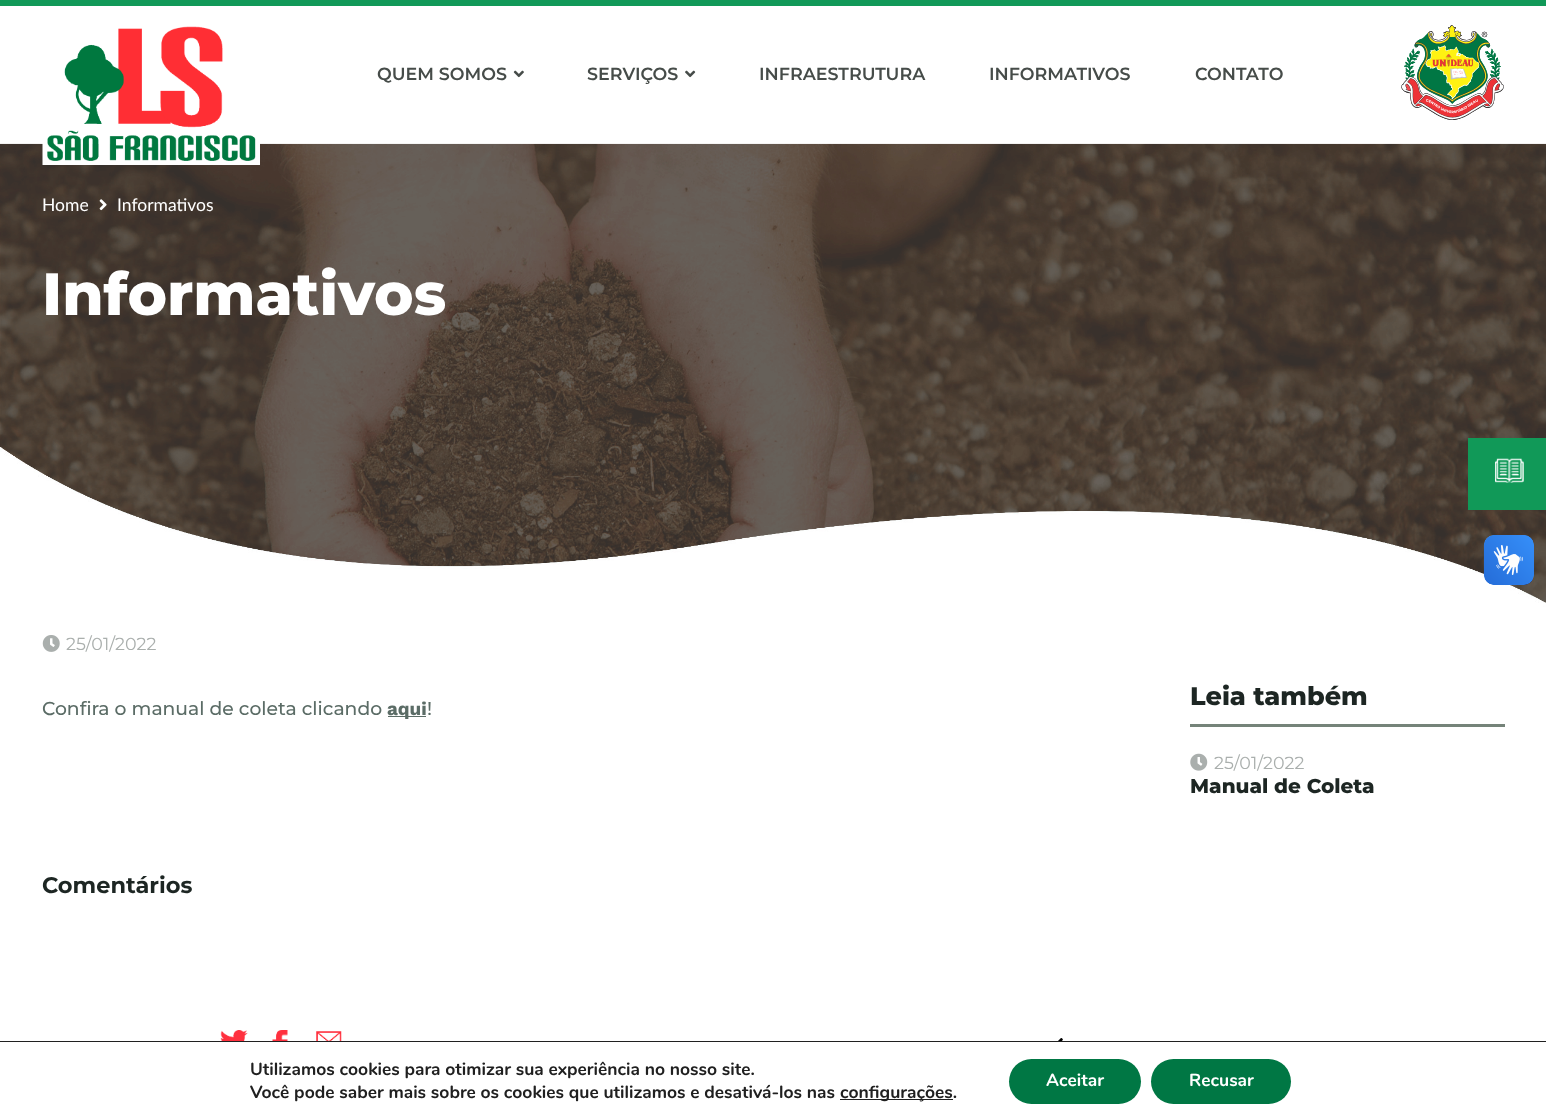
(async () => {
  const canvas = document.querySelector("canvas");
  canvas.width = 1546;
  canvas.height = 1119;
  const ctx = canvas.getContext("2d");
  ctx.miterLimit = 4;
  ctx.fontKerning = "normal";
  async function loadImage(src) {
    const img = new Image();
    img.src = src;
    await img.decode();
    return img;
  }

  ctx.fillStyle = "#ffffff";
  ctx.fillRect(0, 0, 1546, 1119);
  ctx.fillStyle = "#119958";
  ctx.fillRect(0, 0, 1546, 6);
  ctx.drawImage(await loadImage("img/5.png"), 0, 143, 1546, 460);
  ctx.drawImage(await loadImage("img/1.png"), 42, 26, 218, 139);
  ctx.drawImage(await loadImage("img/2.png"), 513, 70, 11, 8);
  ctx.drawImage(await loadImage("img/3.png"), 685, 70, 11, 8);
  ctx.drawImage(await loadImage("img/4.png"), 1401, 25, 103, 95);
  ctx.drawImage(await loadImage("img/6.png"), 99, 199, 8, 12);
  ctx.drawImage(await loadImage("img/7.png"), 0, 447, 1546, 173);
  ctx.drawImage(await loadImage("img/8.png"), 42, 635, 18, 17);
  ctx.fillStyle = "#5b6c66";
  ctx.fillRect(388, 716, 38, 1);
  ctx.fillStyle = "#758379";
  ctx.fillRect(1190, 724, 315, 3);
  ctx.drawImage(await loadImage("img/9.png"), 1190, 753, 18, 18);
  ctx.drawImage(await loadImage("img/10.png"), 220, 1030, 28, 11);
  ctx.drawImage(await loadImage("img/11.png"), 272, 1030, 16, 11);
  ctx.drawImage(await loadImage("img/12.png"), 316, 1031, 26, 10);
  ctx.drawImage(await loadImage("img/13.png"), 1058, 1038, 5, 3);
  ctx.fillStyle = "#119958";
  ctx.fillRect(1468, 438, 78, 72);
  ctx.drawImage(await loadImage("img/14.png"), 1495, 458, 29, 25);
  ctx.drawImage(await loadImage("img/15.png"), 1483, 535, 51, 50);
  ctx.drawImage(await loadImage("img/16.png"), 1484, 535, 50, 50);
  ctx.fillStyle = "#202020";
  ctx.fillRect(0, 1041, 1546, 1);
  ctx.fillRect(840, 1099, 113, 1);
  ctx.fillStyle = "#007744";
  ctx.beginPath();
  ctx.roundRect(1009, 1059, 132, 45, 22.5);
  ctx.fill();
  ctx.beginPath();
  ctx.roundRect(1151, 1059, 140, 45, 22.5);
  ctx.fill();
  ctx.font = "600 17.5px Montserrat";
  ctx.fillStyle = "#464c49";
  for (const [text, x, y] of [
    ["QUEM SOMOS", 377, 80],
    ["SERVIÇOS", 587, 80],
    ["INFRAESTRUTURA", 759, 80],
    ["INFORMATIVOS", 989, 80],
    ["CONTATO", 1195, 80],
  ]) {
    ctx.fillText(text, x, y);
  }
  ctx.font = "17.5px Lato";
  ctx.fillStyle = "#ffffff";
  ctx.fillText("Home", 42, 211);
  ctx.fillText("Informativos", 117, 211);
  ctx.font = "800 59.5px Montserrat";
  ctx.fillText("Informativos", 42, 315);
  ctx.font = "17.5px Montserrat";
  ctx.fillStyle = "#aaafad";
  ctx.fillText("25/01/2022", 66, 650);
  ctx.font = "500 18.75px Montserrat";
  ctx.fillStyle = "#5b6c66";
  ctx.fillText("Confira o manual de coleta clicando", 42, 715);
  ctx.font = "bold 18.75px Work Sans";
  ctx.fillText("aqui", 387, 715);
  ctx.font = "500 18.75px Montserrat";
  ctx.fillText("!", 427, 715);
  ctx.font = "800 25.5px Montserrat";
  ctx.fillStyle = "#1d2623";
  ctx.fillText("Leia também", 1190, 705);
  ctx.font = "17.5px Montserrat";
  ctx.fillStyle = "#aaafad";
  ctx.fillText("25/01/2022", 1214, 769);
  ctx.font = "800 20px Montserrat";
  ctx.fillStyle = "#1d2623";
  ctx.fillText("Manual de Coleta", 1190, 793);
  ctx.font = "bold 22.5px Montserrat";
  ctx.fillText("Comentários", 42, 893);
  ctx.font = "bold 17.5px Nunito";
  ctx.fillStyle = "#202020";
  for (const [text, x, y] of [
    ["Utilizamos cookies para otimizar sua experiência no nosso site.", 250, 1075],
    ["Você pode saber mais sobre os cookies que utilizamos e desativá-los nas", 250, 1098],
    ["configurações.", 840, 1098],
  ]) {
    ctx.fillText(text, x, y);
  }
  ctx.fillStyle = "#ffffff";
  ctx.fillText("Aceitar", 1046, 1086);
  ctx.fillText("Recusar", 1189, 1086);
})();
